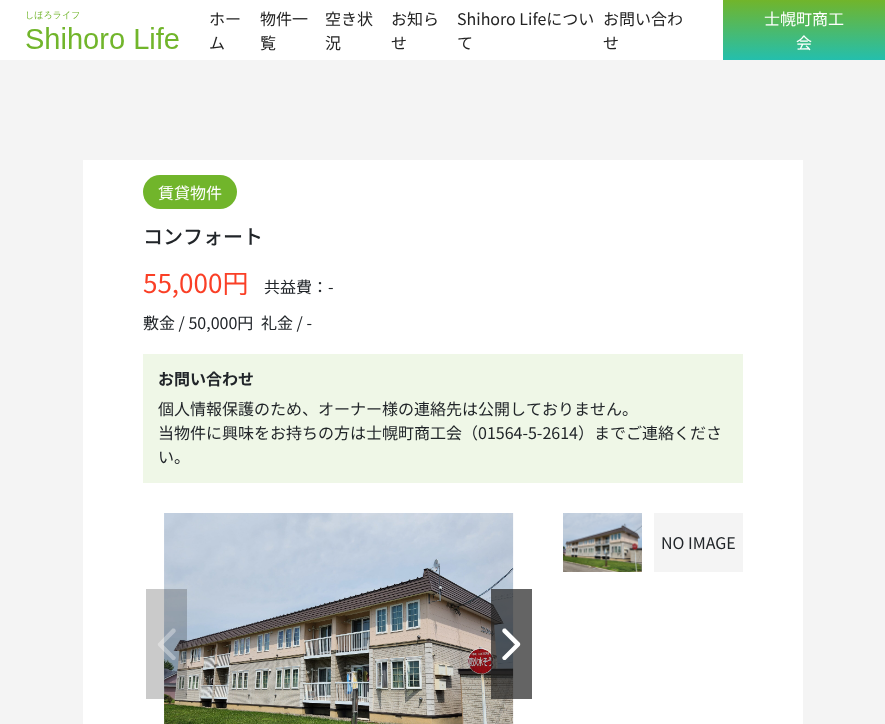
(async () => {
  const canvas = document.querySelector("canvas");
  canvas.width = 885;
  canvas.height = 724;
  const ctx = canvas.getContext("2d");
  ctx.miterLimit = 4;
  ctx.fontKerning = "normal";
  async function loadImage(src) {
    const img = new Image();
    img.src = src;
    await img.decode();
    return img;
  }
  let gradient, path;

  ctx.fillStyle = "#ffffff";
  ctx.fillRect(0, 0, 885, 724);
  ctx.drawImage(await loadImage("img/1.png"), 26, 11, 153, 38);
  gradient = ctx.createLinearGradient(804, 0, 804, 60);
  gradient.addColorStop(0, "#71b52b");
  gradient.addColorStop(1, "#24bfad");
  ctx.fillStyle = gradient;
  ctx.fillRect(723, 0, 162, 60);
  ctx.fillStyle = "#f4f4f4";
  ctx.fillRect(0, 60, 885, 664);
  ctx.fillStyle = "#ffffff";
  ctx.fillRect(83, 160, 720, 564);
  ctx.fillStyle = "#71b52b";
  ctx.beginPath();
  ctx.roundRect(143, 175, 94, 34, 17);
  ctx.fill();
  ctx.fillStyle = "#eff7e7";
  ctx.fillRect(143, 354, 600, 129);
  ctx.drawImage(await loadImage("img/2.png"), 164, 513, 350, 211);
  ctx.fillStyle = "rgba(34, 34, 34, 0.24)";
  ctx.fillRect(146, 589, 41, 110);
  ctx.fillStyle = "rgba(255, 255, 255, 0.35)";
  path = new Path2D("M163 644.5L175 656.5C176 657 176 658.5 175 659.5C174.5 660 174 660 173.5 660C173 660 172 660 172 659.5L158.5 646C157.5 645 157.5 643.5 158.5 643L172 629C172 628.5 173 628.5 173.5 628.5C174 628.5 174.5 628.5 175 629C176 630 176 631.5 175 632.5Z");
  ctx.fill(path);
  ctx.fillStyle = "rgba(34, 34, 34, 0.7)";
  ctx.fillRect(491, 589, 41, 110);
  ctx.fillStyle = "#ffffff";
  path = new Path2D("M515 644.5L503 632.5C502 631.5 502 630 503 629C503.5 628.5 504 628.5 504.5 628.5C505 628.5 506 628.5 506 629L519.5 642.5C520.5 643.5 520.5 645 519.5 646L506 659.5C506 660 505 660 504.5 660C504 660 503.5 660 503 659.5C502 658.5 502 657 503 656.5Z");
  ctx.fill(path);
  ctx.drawImage(await loadImage("img/3.png"), 563, 513, 79, 59);
  ctx.fillStyle = "#f4f4f4";
  ctx.fillRect(654, 513, 89, 59);
  ctx.font = "16px Noto Sans JP";
  ctx.fillStyle = "#222222";
  for (const [text, x, y] of [
    ["ホー", 209, 25],
    ["ム", 209, 49],
    ["物件一", 260, 25],
    ["覧", 260, 49],
    ["空き状", 325, 25],
    ["況", 325, 49],
    ["お知ら", 391, 25],
    ["せ", 391, 49],
    ["Shihoro Lifeについ", 457, 25],
    ["て", 457, 49],
    ["お問い合わ", 603, 25],
    ["せ", 603, 49],
  ]) {
    ctx.fillText(text, x, y);
  }
  ctx.fillStyle = "#ffffff";
  for (const [text, x, y] of [
    ["士幌町商工", 764, 25],
    ["会", 796, 49],
    ["賃貸物件", 158, 199],
  ]) {
    ctx.fillText(text, x, y);
  }
  ctx.font = "500 20px Noto Sans JP";
  ctx.fillStyle = "#212529";
  ctx.fillText("コンフォート", 143, 244);
  ctx.font = "26px Noto Sans JP";
  ctx.fillStyle = "#fa3f26";
  ctx.fillText("55,000円", 143, 293);
  ctx.font = "16px Noto Sans JP";
  ctx.fillStyle = "#212529";
  for (const [text, x, y] of [
    ["共益費：-", 264, 293],
    ["敷金 / 50,000円", 143, 329],
    ["礼金 / -", 261, 329],
  ]) {
    ctx.fillText(text, x, y);
  }
  ctx.font = "bold 16px Noto Sans JP";
  ctx.fillText("お問い合わせ", 158, 385);
  ctx.font = "16px Noto Sans JP";
  for (const [text, x, y] of [
    ["個人情報保護のため、オーナー様の連絡先は公開しておりません。", 158, 415],
    ["当物件に興味をお持ちの方は士幌町商工会（01564-5-2614）までご連絡くださ", 158, 439],
    ["い。", 158, 463],
    ["NO IMAGE", 661, 549],
  ]) {
    ctx.fillText(text, x, y);
  }
})();
